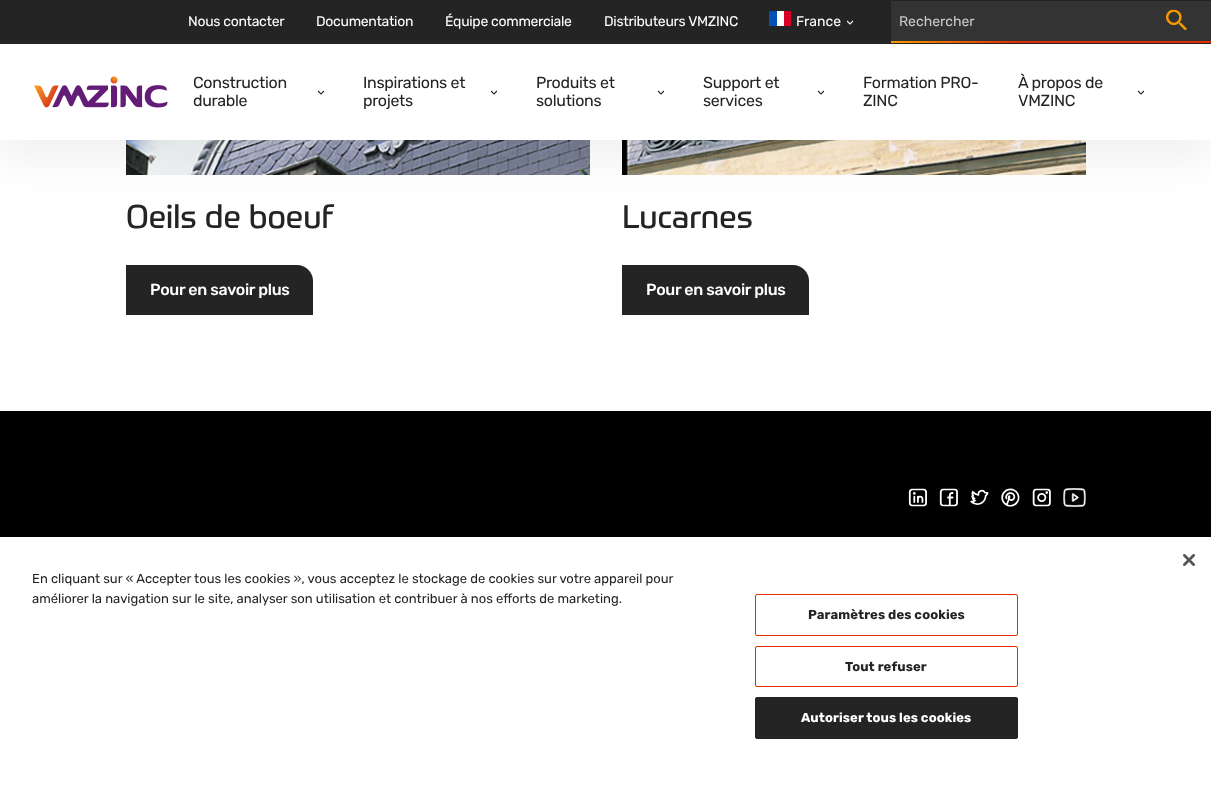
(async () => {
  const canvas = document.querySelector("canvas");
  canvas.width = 1211;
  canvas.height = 791;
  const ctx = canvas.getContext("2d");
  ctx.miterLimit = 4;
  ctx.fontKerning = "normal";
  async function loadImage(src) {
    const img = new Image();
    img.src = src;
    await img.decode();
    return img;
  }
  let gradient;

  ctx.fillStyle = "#ffffff";
  ctx.fillRect(0, 0, 1211, 791);
  ctx.drawImage(await loadImage("img/5.png"), 126, 140, 464, 35);
  ctx.drawImage(await loadImage("img/6.png"), 622, 140, 464, 35);
  ctx.fillStyle = "rgba(0, 0, 0, 0.06)";
  ctx.filter = "blur(20px)";
  ctx.beginPath();
  ctx.rect(0, 20, 1211, 140);
  ctx.fill();
  ctx.filter = "none";
  ctx.fillStyle = "#ffffff";
  ctx.fillRect(0, 44, 1211, 96);
  ctx.drawImage(await loadImage("img/1.png"), 34, 76, 134, 32);
  for (const [x, y, w, h, color] of [
    [0, 0, 1211, 44, "#242424"],
    [769, 11, 8, 15, "#0052b4"],
    [777, 11, 7, 15, "#ffffff"],
    [784, 11, 7, 15, "#d80027"],
  ]) {
    ctx.fillStyle = color;
    ctx.fillRect(x, y, w, h);
  }
  ctx.drawImage(await loadImage("img/2.png"), 846, 20, 8, 5);
  ctx.fillStyle = "#333333";
  ctx.fillRect(891, 1, 320, 40);
  ctx.drawImage(await loadImage("img/3.png"), 1166, 9, 21, 22);
  gradient = ctx.createLinearGradient(891, 42, 1211, 42);
  gradient.addColorStop(0, "#f49a00");
  gradient.addColorStop(0.4, "#e22c01");
  ctx.fillStyle = gradient;
  ctx.fillRect(891, 41, 320, 2);
  ctx.drawImage(await loadImage("img/4.png"), 317, 90, 8, 5);
  ctx.drawImage(await loadImage("img/4.png"), 490, 90, 8, 5);
  ctx.drawImage(await loadImage("img/4.png"), 657, 90, 8, 5);
  ctx.drawImage(await loadImage("img/4.png"), 817, 90, 8, 5);
  ctx.drawImage(await loadImage("img/4.png"), 1137, 90, 8, 5);
  ctx.fillStyle = "#242424";
  ctx.beginPath();
  ctx.roundRect(126, 265, 187, 50, [0, 16, 0, 0]);
  ctx.fill();
  ctx.beginPath();
  ctx.roundRect(622, 265, 187, 50, [0, 16, 0, 0]);
  ctx.fill();
  ctx.fillStyle = "#000000";
  ctx.fillRect(0, 411, 1211, 126);
  ctx.drawImage(await loadImage("img/7.png"), 908, 488, 19, 19);
  ctx.drawImage(await loadImage("img/8.png"), 939, 488, 19, 19);
  ctx.drawImage(await loadImage("img/9.png"), 970, 489, 19, 16);
  ctx.drawImage(await loadImage("img/10.png"), 1001, 488, 19, 19);
  ctx.drawImage(await loadImage("img/11.png"), 1032, 488, 19, 19);
  ctx.drawImage(await loadImage("img/12.png"), 1063, 488, 23, 19);
  ctx.drawImage(await loadImage("img/13.png"), 1183, 554, 12, 12);
  ctx.beginPath();
  ctx.roundRect(755.5, 594.5, 262, 41, 1.5);
  ctx.strokeStyle = "#e22c01";
  ctx.stroke();
  ctx.beginPath();
  ctx.roundRect(755.5, 646.5, 262, 40, 1.5);
  ctx.stroke();
  ctx.fillStyle = "#242424";
  ctx.beginPath();
  ctx.roundRect(755.5, 697.5, 262, 41, 1.5);
  ctx.fill();
  ctx.strokeStyle = "#242424";
  ctx.stroke();
  ctx.letterSpacing = "-0.3px";
  ctx.font = "14px Rubik";
  ctx.fillStyle = "#ffffff";
  for (const [text, x, y] of [
    ["Nous contacter", 188, 26],
    ["Documentation", 316, 26],
    ["Équipe commerciale", 445, 26],
    ["Distributeurs VMZINC", 604, 26],
  ]) {
    ctx.fillText(text, x, y);
  }
  ctx.letterSpacing = "0px";
  ctx.fillText("France", 796, 26);
  ctx.fillStyle = "#cacaca";
  ctx.fillText("Rechercher", 899, 26);
  ctx.letterSpacing = "-0.3px";
  ctx.font = "16px Rubik";
  ctx.fillStyle = "#242424";
  for (const [text, x, y] of [
    ["Construction", 193, 88],
    ["durable", 193, 106],
    ["Inspirations et", 363, 88],
    ["projets", 363, 106],
    ["Produits et", 536, 88],
    ["solutions", 536, 106],
    ["Support et", 703, 88],
    ["services", 703, 106],
    ["Formation PRO-", 863, 88],
    ["ZINC", 863, 106],
    ["À propos de", 1018, 88],
    ["VMZINC", 1018, 106],
  ]) {
    ctx.fillText(text, x, y);
  }
  ctx.letterSpacing = "0px";
  ctx.font = "32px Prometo";
  ctx.fillText("Oeils de boeuf", 126, 228);
  ctx.letterSpacing = "-0.3px";
  ctx.font = "500 16px Rubik";
  ctx.fillStyle = "#ffffff";
  ctx.fillText("Pour en savoir plus", 150, 295);
  ctx.letterSpacing = "0px";
  ctx.font = "32px Prometo";
  ctx.fillStyle = "#242424";
  ctx.fillText("Lucarnes", 622, 228);
  ctx.letterSpacing = "-0.3px";
  ctx.font = "500 16px Rubik";
  ctx.fillStyle = "#ffffff";
  ctx.fillText("Pour en savoir plus", 646, 295);
  ctx.letterSpacing = "0px";
  ctx.font = "13px Rubik";
  ctx.fillStyle = "#242424";
  ctx.fillText("En cliquant sur « Accepter tous les cookies », vous acceptez le stockage de cookies sur votre appareil pour", 32, 583);
  ctx.fillText("améliorer la navigation sur le site, analyser son utilisation et contribuer à nos efforts de marketing.", 32, 603);
  ctx.letterSpacing = "0.1px";
  ctx.font = "bold 13px Rubik";
  ctx.fillText("Paramètres des cookies", 808, 619);
  ctx.fillText("Tout refuser", 845, 671);
  ctx.fillStyle = "#ffffff";
  ctx.fillText("Autoriser tous les cookies", 801, 722);
})();
